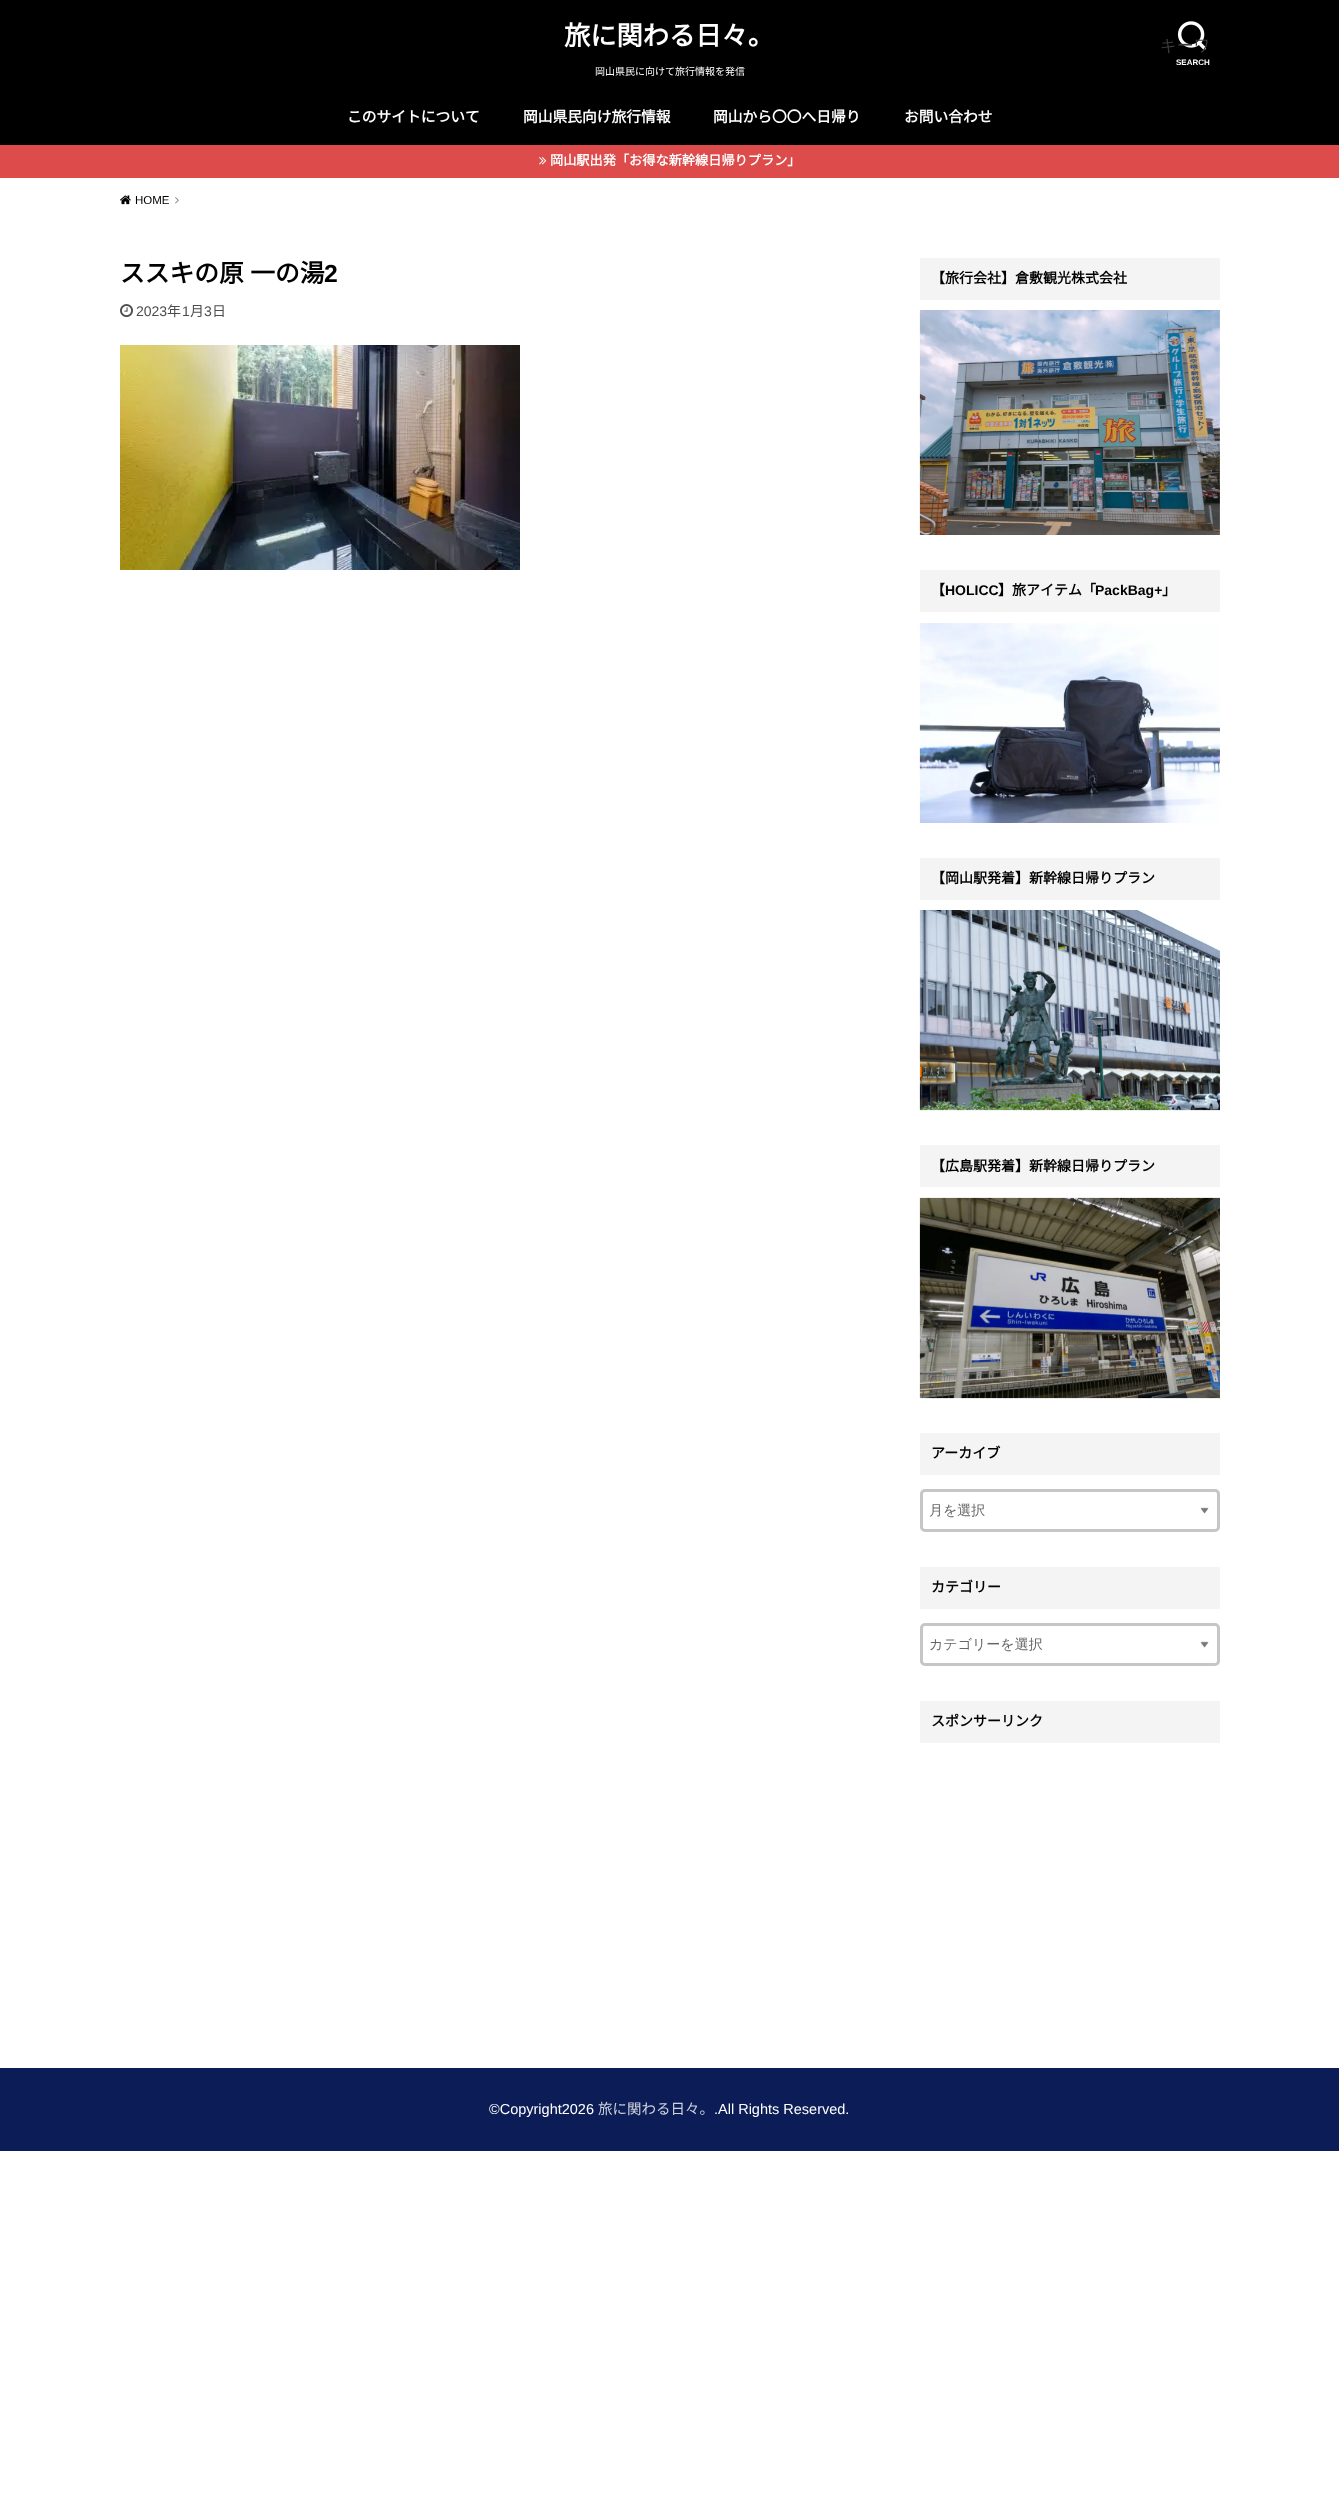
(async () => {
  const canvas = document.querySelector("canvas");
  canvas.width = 1339;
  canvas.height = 2514;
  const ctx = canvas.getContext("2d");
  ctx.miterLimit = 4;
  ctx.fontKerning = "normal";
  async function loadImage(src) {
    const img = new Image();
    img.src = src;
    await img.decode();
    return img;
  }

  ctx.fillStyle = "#ffffff";
  ctx.fillRect(0, 0, 1339, 2514);
  ctx.fillStyle = "#000000";
  ctx.fillRect(0, 0, 1339, 145);
  ctx.drawImage(await loadImage("img/1.png"), 1177, 21, 29, 29);
  ctx.fillStyle = "#dd4b4b";
  ctx.fillRect(0, 145, 1339, 33);
  ctx.drawImage(await loadImage("img/2.png"), 539, 157, 8, 8);
  ctx.drawImage(await loadImage("img/3.png"), 120, 195, 11, 10);
  ctx.drawImage(await loadImage("img/4.png"), 175, 197, 4, 7);
  ctx.drawImage(await loadImage("img/5.png"), 120, 304, 13, 14);
  ctx.drawImage(await loadImage("img/6.png"), 120, 345, 400, 225);
  ctx.fillStyle = "#f4f4f4";
  ctx.fillRect(920, 258, 300, 42);
  ctx.drawImage(await loadImage("img/7.png"), 919, 310, 301, 225);
  ctx.fillRect(920, 570, 300, 42);
  ctx.drawImage(await loadImage("img/8.png"), 919, 623, 301, 200);
  ctx.fillRect(920, 858, 300, 42);
  ctx.drawImage(await loadImage("img/9.png"), 919, 910, 301, 201);
  ctx.fillRect(920, 1145, 300, 42);
  ctx.drawImage(await loadImage("img/10.png"), 919, 1197, 301, 202);
  ctx.fillRect(920, 1433, 300, 42);
  ctx.drawImage(await loadImage("img/11.png"), 1200, 1507, 9, 7);
  ctx.beginPath();
  ctx.roundRect(921.5, 1490.5, 297, 40, 3.5);
  ctx.strokeStyle = "#c6c6c6";
  ctx.lineWidth = 3;
  ctx.stroke();
  ctx.fillRect(920, 1567, 300, 42);
  ctx.drawImage(await loadImage("img/11.png"), 1200, 1641, 9, 7);
  ctx.beginPath();
  ctx.roundRect(921.5, 1624.5, 297, 40, 3.5);
  ctx.stroke();
  ctx.fillRect(920, 1701, 300, 42);
  ctx.fillStyle = "#0b1c56";
  ctx.fillRect(0, 2068, 1339, 83);
  ctx.font = "bold 26.25px Noto Sans JP";
  ctx.fillStyle = "#ffffff";
  ctx.fillText("旅に関わる日々。", 564, 45);
  ctx.font = "100 10px Noto Sans JP";
  ctx.fillText("岡山県民に向けて旅行情報を発信", 595, 75);
  ctx.font = "500 16.5px WenQuanYi Zen Hei";
  ctx.fillStyle = "#3b3b3b";
  ctx.fillText("キーワ", 1160, 51);
  ctx.font = "bold 8px Liberation Sans";
  ctx.fillStyle = "#ffffff";
  ctx.fillText("SEARCH", 1176, 65);
  ctx.font = "bold 14.75px Noto Sans JP";
  for (const [text, x, y] of [
    ["このサイトについて", 347, 122],
    ["岡山県民向け旅行情報", 523, 122],
    ["岡山から〇〇へ日帰り", 713, 122],
    ["お問い合わせ", 904, 122],
  ]) {
    ctx.fillText(text, x, y);
  }
  ctx.font = "bold 13.2px Noto Sans JP";
  ctx.fillText("岡山駅出発「お得な新幹線日帰りプラン」", 550, 165);
  ctx.font = "11.5px Liberation Sans";
  ctx.fillStyle = "#000000";
  ctx.fillText("HOME", 135, 204);
  ctx.wordSpacing = "1px";
  ctx.font = "bold 24.75px Noto Sans JP";
  ctx.fillText("ススキの原 一の湯", 120, 282);
  ctx.wordSpacing = "0px";
  ctx.font = "bold 24.75px Liberation Sans";
  ctx.fillText("2", 324, 282);
  ctx.font = "14px Liberation Sans";
  ctx.fillStyle = "#4d4d4d";
  ctx.fillText("2023", 136, 316);
  ctx.font = "100 14px Noto Sans JP";
  ctx.fillText("年", 167, 316);
  ctx.font = "14px Liberation Sans";
  ctx.fillText("1", 182, 316);
  ctx.font = "100 14px Noto Sans JP";
  ctx.fillText("月", 190, 316);
  ctx.font = "14px Liberation Sans";
  ctx.fillText("3", 204, 316);
  ctx.font = "100 14px Noto Sans JP";
  ctx.fillText("日", 212, 316);
  ctx.font = "bold 14px Noto Sans JP";
  ctx.fillStyle = "#000000";
  ctx.fillText("【旅行会社】倉敷観光株式会社", 931, 283);
  ctx.fillText("【", 931, 595);
  ctx.font = "bold 14px Liberation Sans";
  ctx.fillText("HOLICC", 945, 595);
  ctx.font = "bold 14px Noto Sans JP";
  ctx.fillText("】旅アイテム「", 998, 595);
  ctx.font = "bold 14px Liberation Sans";
  ctx.fillText("PackBag+", 1095, 595);
  ctx.font = "bold 14px Noto Sans JP";
  for (const [text, x, y] of [
    ["」", 1162, 595],
    ["【岡山駅発着】新幹線日帰りプラン", 931, 883],
    ["【広島駅発着】新幹線日帰りプラン", 931, 1171],
    ["アーカイブ", 931, 1458],
  ]) {
    ctx.fillText(text, x, y);
  }
  ctx.font = "500 14px WenQuanYi Zen Hei";
  ctx.fillStyle = "#666666";
  ctx.fillText("月を選択", 929, 1515);
  ctx.font = "bold 14px Noto Sans JP";
  ctx.fillStyle = "#000000";
  ctx.fillText("カテゴリー", 931, 1592);
  ctx.font = "500 14px WenQuanYi Zen Hei";
  ctx.fillStyle = "#666666";
  ctx.fillText("カテゴリーを選択", 929, 1649);
  ctx.font = "bold 14px Noto Sans JP";
  ctx.fillStyle = "#000000";
  ctx.fillText("スポンサーリンク", 931, 1726);
  ctx.font = "14.5px Liberation Sans";
  ctx.fillStyle = "#ffffff";
  ctx.fillText("©Copyright2026", 489, 2114);
  ctx.font = "100 14.5px Noto Sans JP";
  ctx.fillStyle = "#ced2dd";
  ctx.fillText("旅に関わる日々。", 598, 2114);
  ctx.font = "14.5px Liberation Sans";
  ctx.fillStyle = "#ffffff";
  ctx.fillText(".All Rights Reserved.", 714, 2114);
})();
